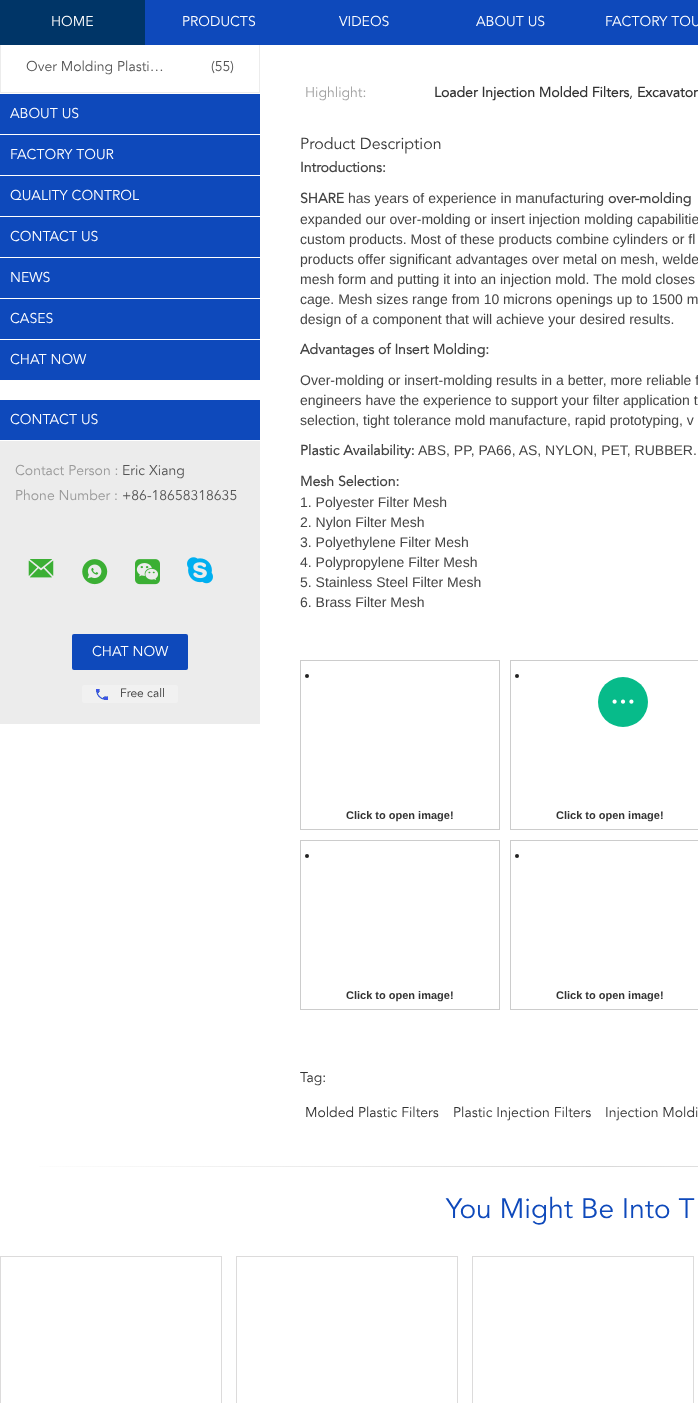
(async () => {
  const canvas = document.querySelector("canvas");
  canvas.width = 698;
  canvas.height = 1403;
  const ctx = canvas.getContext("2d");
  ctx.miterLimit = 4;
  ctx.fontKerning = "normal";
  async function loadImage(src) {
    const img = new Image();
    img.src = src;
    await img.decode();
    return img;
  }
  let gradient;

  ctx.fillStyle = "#ffffff";
  ctx.fillRect(0, 0, 698, 1403);
  for (const [x, y, w, h, color] of [
    [259, 41, 1, 52, "#ececec"],
    [145, 0, 553, 45, "#0e49bb"],
    [0, 92, 260, 1, "#ececec"],
    [0, 41, 1, 52, "#ececec"],
    [0, 0, 145, 45, "#003567"],
    [0, 94, 260, 40, "#0e49bb"],
    [0, 135, 260, 40, "#0e49bb"],
    [0, 176, 260, 40, "#0e49bb"],
    [0, 217, 260, 40, "#0e49bb"],
    [0, 258, 260, 40, "#0e49bb"],
    [0, 299, 260, 40, "#0e49bb"],
    [0, 340, 260, 40, "#0e49bb"],
    [0, 441, 260, 283, "#ececec"],
    [0, 400, 260, 40, "#0e49bb"],
  ]) {
    ctx.fillStyle = color;
    ctx.fillRect(x, y, w, h);
  }
  ctx.drawImage(await loadImage("img/1.png"), 28, 559, 26, 19);
  ctx.drawImage(await loadImage("img/2.png"), 82, 559, 26, 26);
  ctx.drawImage(await loadImage("img/3.png"), 135, 559, 25, 26);
  ctx.drawImage(await loadImage("img/4.png"), 187, 557, 26, 27);
  ctx.beginPath();
  ctx.roundRect(72, 634, 116, 36, 2);
  ctx.fill();
  ctx.fillStyle = "#f1f1f1";
  ctx.beginPath();
  ctx.roundRect(82, 685, 96, 18, 2);
  ctx.fill();
  ctx.drawImage(await loadImage("img/5.png"), 96, 689, 12, 11);
  ctx.strokeStyle = "#cccccc";
  ctx.strokeRect(300.5, 660.5, 199, 169);
  ctx.fillStyle = "#222222";
  ctx.beginPath();
  ctx.arc(307, 676, 2, 0, Math.PI * 2);
  ctx.fill();
  ctx.strokeRect(510.5, 660.5, 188, 169);
  ctx.beginPath();
  ctx.arc(517, 676, 2, 0, Math.PI * 2);
  ctx.fill();
  ctx.strokeRect(300.5, 840.5, 199, 169);
  ctx.beginPath();
  ctx.arc(307, 856, 2, 0, Math.PI * 2);
  ctx.fill();
  ctx.strokeRect(510.5, 840.5, 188, 169);
  ctx.beginPath();
  ctx.arc(517, 856, 2, 0, Math.PI * 2);
  ctx.fill();
  ctx.fillStyle = "#07bb8a";
  ctx.beginPath();
  ctx.arc(623, 702, 25, 0, Math.PI * 2);
  ctx.fill();
  ctx.drawImage(await loadImage("img/6.png"), 612, 699, 22, 5);
  gradient = ctx.createLinearGradient(0, 1167, 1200, 1167);
  gradient.addColorStop(0, "#ffffff");
  gradient.addColorStop(0.5, "#d9d9d9");
  gradient.addColorStop(1, "#ffffff");
  ctx.fillStyle = gradient;
  ctx.fillRect(39, 1166, 659, 1);
  ctx.strokeStyle = "#dcdbdb";
  ctx.strokeRect(0.5, 1256.5, 221, 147);
  ctx.strokeRect(236.5, 1256.5, 221, 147);
  ctx.strokeRect(472.5, 1256.5, 221, 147);
  ctx.font = "14px Avenir";
  ctx.fillStyle = "#ffffff";
  for (const [text, x, y] of [
    ["HOME", 51, 26],
    ["PRODUCTS", 182, 26],
    ["VIDEOS", 339, 26],
    ["ABOUT US", 476, 26],
    ["FACTORY TOU", 605, 26],
  ]) {
    ctx.fillText(text, x, y);
  }
  ctx.fillStyle = "#555555";
  ctx.fillText("Over Molding Plasti…", 26, 71);
  ctx.fillText("(55)", 211, 71);
  ctx.fillStyle = "#ffffff";
  for (const [text, x, y] of [
    ["ABOUT US", 10, 118],
    ["FACTORY TOUR", 10, 159],
    ["QUALITY CONTROL", 10, 200],
    ["CONTACT US", 10, 241],
    ["NEWS", 10, 282],
    ["CASES", 10, 323],
    ["CHAT NOW", 10, 364],
    ["CONTACT US", 10, 424],
  ]) {
    ctx.fillText(text, x, y);
  }
  ctx.fillStyle = "#999999";
  ctx.fillText("Contact Person :", 15, 475);
  ctx.fillStyle = "#555555";
  ctx.fillText("Eric Xiang", 122, 475);
  ctx.fillStyle = "#999999";
  ctx.fillText("Phone Number :", 15, 500);
  ctx.fillStyle = "#555555";
  ctx.fillText("+86-18658318635", 122, 500);
  ctx.fillStyle = "#ffffff";
  ctx.fillText("CHAT NOW", 92, 656);
  ctx.font = "12px Avenir";
  ctx.fillStyle = "#333333";
  ctx.fillText("Free call", 120, 697);
  ctx.font = "14px Avenir";
  ctx.fillStyle = "#a0a0a0";
  ctx.fillText("Highlight:", 305, 97);
  ctx.font = "bold 14px Avenir";
  ctx.fillStyle = "#333333";
  ctx.fillText("Loader Injection Molded Filters", 434, 97);
  ctx.font = "14px Avenir";
  ctx.fillText(",", 629, 97);
  ctx.font = "bold 14px Avenir";
  ctx.fillText("Excavator", 637, 97);
  ctx.font = "16px Avenir";
  ctx.fillText("Product Description", 300, 149);
  ctx.font = "bold 14px Avenir";
  ctx.fillStyle = "#444444";
  ctx.fillText("Introductions:", 300, 172);
  ctx.fillText("SHARE", 300, 203);
  ctx.font = "14px Liberation Sans";
  ctx.fillText("has years of experience in manufacturing", 348, 203);
  ctx.font = "bold 14px Avenir";
  ctx.fillText("over-molding", 608, 203);
  ctx.font = "14px Liberation Sans";
  for (const [text, x, y] of [
    ["expanded our over-molding or insert injection molding capabilitie", 300, 224],
    ["custom products. Most of these products combine cylinders or fl", 300, 244],
    ["products offer significant advantages over metal on mesh, welde", 300, 264],
    ["mesh form and putting it into an injection mold. The mold closes", 300, 284],
    ["cage. Mesh sizes range from 10 microns openings up to 1500 m", 300, 304],
    ["design of a component that will achieve your desired results.", 300, 324],
  ]) {
    ctx.fillText(text, x, y);
  }
  ctx.font = "bold 14px Avenir";
  ctx.fillText("Advantages of Insert Molding:", 300, 354);
  ctx.font = "14px Liberation Sans";
  for (const [text, x, y] of [
    ["Over-molding or insert-molding results in a better, more reliable f", 300, 385],
    ["engineers have the experience to support your filter application t", 300, 405],
    ["selection, tight tolerance mold manufacture, rapid prototyping, v", 300, 425],
  ]) {
    ctx.fillText(text, x, y);
  }
  ctx.font = "bold 14px Avenir";
  ctx.fillText("Plastic Availability:", 300, 455);
  ctx.font = "14px Liberation Sans";
  ctx.fillText("ABS, PP, PA66, AS, NYLON, PET, RUBBER.", 418, 455);
  ctx.font = "bold 14px Avenir";
  ctx.fillText("Mesh Selection:", 300, 486);
  ctx.font = "14px Liberation Sans";
  for (const [text, x, y] of [
    ["1. Polyester Filter Mesh", 300, 507],
    ["2. Nylon Filter Mesh", 300, 527],
    ["3. Polyethylene Filter Mesh", 300, 547],
    ["4. Polypropylene Filter Mesh", 300, 567],
    ["5. Stainless Steel Filter Mesh", 300, 587],
    ["6. Brass Filter Mesh", 300, 607],
  ]) {
    ctx.fillText(text, x, y);
  }
  ctx.font = "bold 11px Liberation Sans";
  ctx.fillStyle = "#333333";
  for (const [text, x, y] of [
    ["Click to open image!", 346, 819],
    ["Click to open image!", 556, 819],
    ["Click to open image!", 346, 999],
    ["Click to open image!", 556, 999],
  ]) {
    ctx.fillText(text, x, y);
  }
  ctx.font = "14px Avenir";
  for (const [text, x, y] of [
    ["Tag:", 300, 1082],
    ["Molded Plastic Filters", 305, 1117],
    ["Plastic Injection Filters", 453, 1117],
    ["Injection Moldi", 605, 1117],
  ]) {
    ctx.fillText(text, x, y);
  }
  ctx.font = "28px Avenir";
  ctx.fillStyle = "#0e49bb";
  ctx.fillText("You Might Be Into T", 446, 1218);
})();
